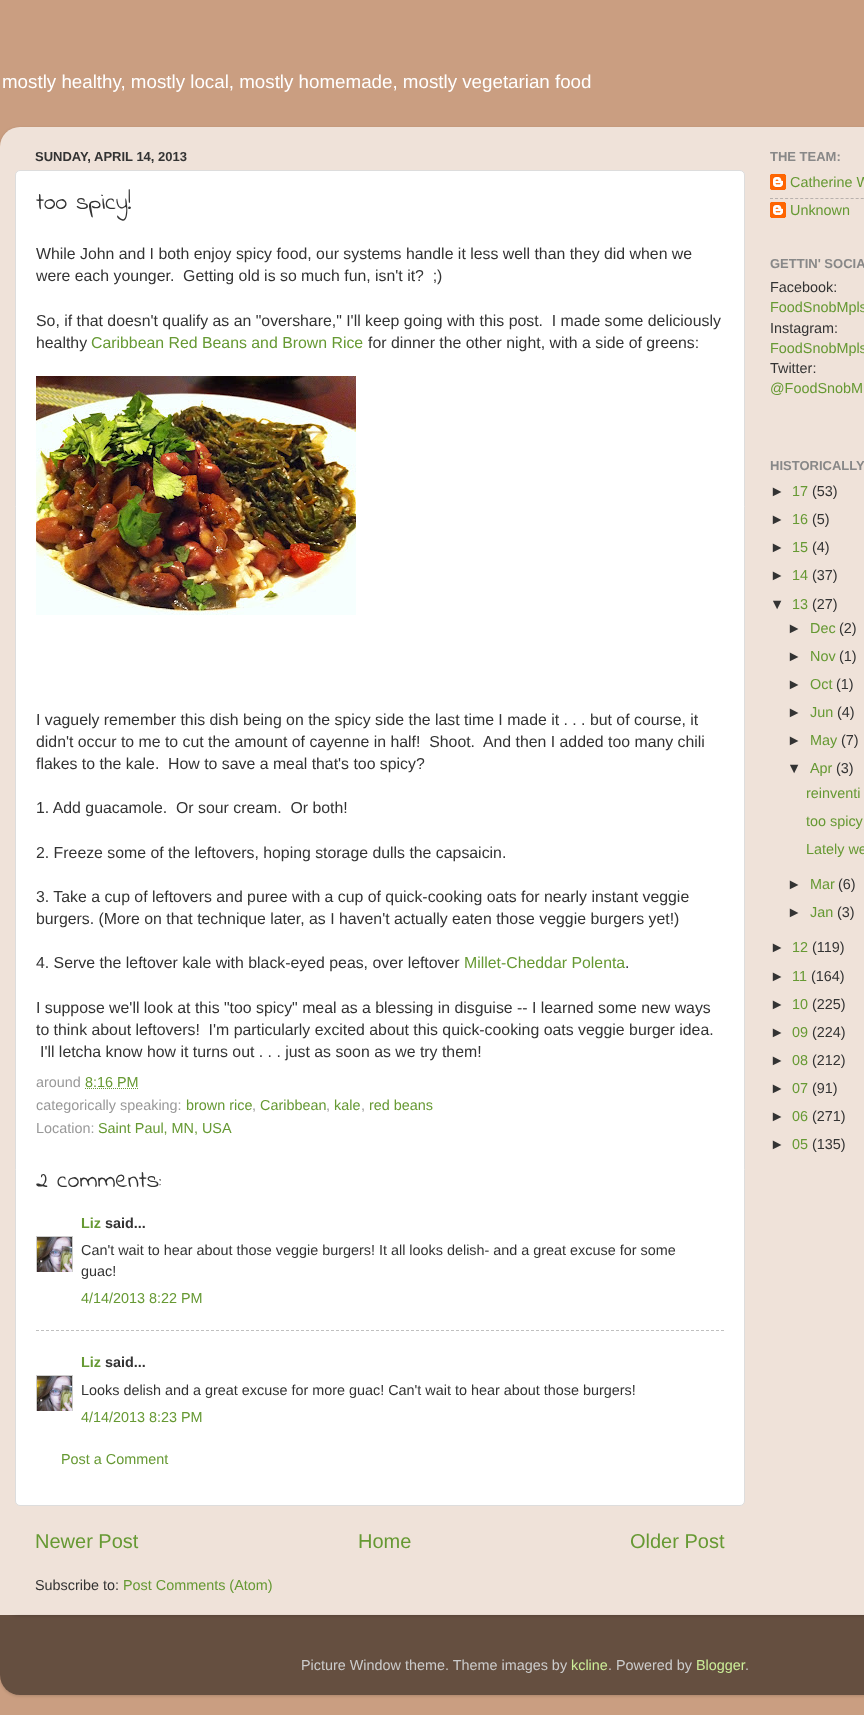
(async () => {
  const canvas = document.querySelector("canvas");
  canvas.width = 864;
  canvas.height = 1715;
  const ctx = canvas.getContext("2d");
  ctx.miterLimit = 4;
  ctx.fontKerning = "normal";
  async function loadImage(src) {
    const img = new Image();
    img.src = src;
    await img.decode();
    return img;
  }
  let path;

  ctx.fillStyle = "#ca9e81";
  ctx.fillRect(0, 0, 864, 1715);
  ctx.save();
  path = new Path2D("M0 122H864V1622H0ZM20 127H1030C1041 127 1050 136 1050 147V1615H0V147C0 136 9 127 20 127Z");
  ctx.clip(path, "evenodd");
  ctx.fillStyle = "rgba(0, 0, 0, 0.15)";
  ctx.filter = "blur(1.5px)";
  ctx.beginPath();
  ctx.roundRect(0, 128, 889, 1488, 20);
  ctx.fill();
  ctx.filter = "none";
  ctx.restore();
  ctx.drawImage(await loadImage("img/1.png"), 0, 127, 864, 1488);
  ctx.fillStyle = "#ffffff";
  ctx.beginPath();
  ctx.roundRect(15.5, 170.5, 729, 1335, 4.5);
  ctx.fill();
  ctx.strokeStyle = "#dddddd";
  ctx.stroke();
  ctx.drawImage(await loadImage("img/2.png"), 36, 376, 320, 239);
  path = new Path2D("M85 1088.5H138.5");
  ctx.strokeStyle = "#669933";
  ctx.setLineDash([1, 1]);
  ctx.stroke(path);
  ctx.save();
  ctx.beginPath();
  ctx.rect(36, 1236, 37, 36);
  ctx.clip();
  ctx.strokeStyle = "#cccccc";
  ctx.setLineDash([]);
  ctx.strokeRect(36.5, 1236.5, 36, 36);
  ctx.restore();
  ctx.drawImage(await loadImage("img/3.png"), 37, 1237, 35, 35);
  path = new Path2D("M36 1330.5H724");
  ctx.strokeStyle = "#c0c0c0";
  ctx.setLineDash([3, 2]);
  ctx.stroke(path);
  ctx.save();
  ctx.beginPath();
  ctx.rect(36, 1375, 37, 36);
  ctx.clip();
  ctx.strokeStyle = "#cccccc";
  ctx.setLineDash([]);
  ctx.strokeRect(36.5, 1375.5, 36, 36);
  ctx.restore();
  ctx.drawImage(await loadImage("img/3.png"), 37, 1376, 35, 35);
  ctx.drawImage(await loadImage("img/4.png"), 770, 174, 16, 16);
  path = new Path2D("M770 198.5H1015");
  ctx.strokeStyle = "#b8b1ad";
  ctx.setLineDash([3, 2.04]);
  ctx.stroke(path);
  ctx.drawImage(await loadImage("img/4.png"), 770, 202, 16, 16);
  ctx.save();
  path = new Path2D("M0 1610H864V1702H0ZM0 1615H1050V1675C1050 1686 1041 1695 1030 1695H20C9 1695 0 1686 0 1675Z");
  ctx.clip(path, "evenodd");
  ctx.fillStyle = "rgba(0, 0, 0, 0.15)";
  ctx.filter = "blur(1.5px)";
  ctx.beginPath();
  ctx.roundRect(0, 1616, 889, 80, 20);
  ctx.fill();
  ctx.filter = "none";
  ctx.restore();
  ctx.drawImage(await loadImage("img/5.png"), 0, 1615, 864, 80);
  ctx.font = "18.75px Liberation Sans";
  ctx.fillText("mostly healthy, mostly local, mostly homemade, mostly vegetarian food", 2, 88);
  ctx.font = "bold 13px Liberation Sans";
  ctx.fillStyle = "#333333";
  ctx.fillText("SUNDAY, APRIL 14, 2013", 35, 161);
  ctx.font = "24px Indie Flower";
  ctx.fillText("too spicy!", 36, 209);
  ctx.font = "15.85px Liberation Sans";
  for (const [text, x, y] of [
    ["While John and I both enjoy spicy food, our systems handle it less well than they did when we", 36, 259],
    ["were each younger.  Getting old is so much fun, isn't it?  ;)", 36, 281],
    ["So, if that doesn't qualify as an \"overshare,\" I'll keep going with this post.  I made some deliciously", 36, 326],
    ["healthy", 36, 348],
  ]) {
    ctx.fillText(text, x, y);
  }
  ctx.fillStyle = "#669933";
  ctx.fillText("Caribbean Red Beans and Brown Rice", 91, 348);
  ctx.fillStyle = "#333333";
  for (const [text, x, y] of [
    ["for dinner the other night, with a side of greens:", 368, 348],
    ["I vaguely remember this dish being on the spicy side the last time I made it . . . but of course, it", 36, 725],
    ["didn't occur to me to cut the amount of cayenne in half!  Shoot.  And then I added too many chili", 36, 747],
    ["flakes to the kale.  How to save a meal that's too spicy?", 36, 769],
    ["1. Add guacamole.  Or sour cream.  Or both!", 36, 813],
    ["2. Freeze some of the leftovers, hoping storage dulls the capsaicin.", 36, 858],
    ["3. Take a cup of leftovers and puree with a cup of quick-cooking oats for nearly instant veggie", 36, 902],
    ["burgers. (More on that technique later, as I haven't actually eaten those veggie burgers yet!)", 36, 924],
    ["4. Serve the leftover kale with black-eyed peas, over leftover", 36, 968],
  ]) {
    ctx.fillText(text, x, y);
  }
  ctx.fillStyle = "#669933";
  ctx.fillText("Millet-Cheddar Polenta", 464, 968);
  ctx.fillStyle = "#333333";
  for (const [text, x, y] of [
    [".", 625, 968],
    ["I suppose we'll look at this \"too spicy\" meal as a blessing in disguise -- I learned some new ways", 36, 1013],
    ["to think about leftovers!  I'm particularly excited about this quick-cooking oats veggie burger idea.", 36, 1035],
    ["I'll letcha know how it turns out . . . just as soon as we try them!", 40, 1057],
  ]) {
    ctx.fillText(text, x, y);
  }
  ctx.font = "14.4px Liberation Sans";
  ctx.fillStyle = "#999999";
  ctx.fillText("around", 36, 1087);
  ctx.fillStyle = "#669933";
  ctx.fillText("8:16 PM", 85, 1087);
  ctx.fillStyle = "#999999";
  ctx.fillText("categorically speaking:", 36, 1110);
  ctx.fillStyle = "#669933";
  ctx.fillText("brown rice", 186, 1110);
  ctx.fillStyle = "#999999";
  ctx.fillText(",", 252, 1110);
  ctx.fillStyle = "#669933";
  ctx.fillText("Caribbean", 260, 1110);
  ctx.fillStyle = "#999999";
  ctx.fillText(",", 326, 1110);
  ctx.fillStyle = "#669933";
  ctx.fillText("kale", 334, 1110);
  ctx.fillStyle = "#999999";
  ctx.fillText(",", 361, 1110);
  ctx.fillStyle = "#669933";
  ctx.fillText("red beans", 369, 1110);
  ctx.fillStyle = "#999999";
  ctx.fillText("Location:", 36, 1133);
  ctx.fillStyle = "#669933";
  ctx.fillText("Saint Paul, MN, USA", 98, 1133);
  ctx.font = "24px Indie Flower";
  ctx.fillStyle = "#333333";
  ctx.fillText("2 comments:", 36, 1187);
  ctx.font = "bold 14.4px Liberation Sans";
  ctx.fillStyle = "#669933";
  ctx.fillText("Liz", 81, 1228);
  ctx.fillStyle = "#333333";
  ctx.fillText("said...", 105, 1228);
  ctx.font = "14.4px Liberation Sans";
  ctx.fillText("Can't wait to hear about those veggie burgers! It all looks delish- and a great excuse for some", 81, 1255);
  ctx.fillText("guac!", 81, 1276);
  ctx.fillStyle = "#669933";
  ctx.fillText("4/14/2013 8:22 PM", 81, 1303);
  ctx.font = "bold 14.4px Liberation Sans";
  ctx.fillText("Liz", 81, 1367);
  ctx.fillStyle = "#333333";
  ctx.fillText("said...", 105, 1367);
  ctx.font = "14.4px Liberation Sans";
  ctx.fillText("Looks delish and a great excuse for more guac! Can't wait to hear about those burgers!", 81, 1395);
  ctx.fillStyle = "#669933";
  ctx.fillText("4/14/2013 8:23 PM", 81, 1422);
  ctx.fillText("Post a Comment", 61, 1464);
  ctx.font = "20px Liberation Sans";
  for (const [text, x, y] of [
    ["Newer Post", 35, 1548],
    ["Home", 358, 1548],
    ["Older Post", 630, 1548],
  ]) {
    ctx.fillText(text, x, y);
  }
  ctx.font = "14.4px Liberation Sans";
  ctx.fillStyle = "#333333";
  ctx.fillText("Subscribe to:", 35, 1590);
  ctx.fillStyle = "#669933";
  ctx.fillText("Post Comments (Atom)", 123, 1590);
  ctx.font = "bold 13px Liberation Sans";
  ctx.fillStyle = "#888888";
  ctx.fillText("THE TEAM:", 770, 161);
  ctx.font = "14.4px Liberation Sans";
  ctx.fillStyle = "#669933";
  ctx.fillText("Catherine W", 790, 187);
  ctx.fillText("Unknown", 790, 215);
  ctx.font = "bold 13px Liberation Sans";
  ctx.fillStyle = "#888888";
  ctx.fillText("GETTIN' SOCIA", 770, 268);
  ctx.font = "14.4px Liberation Sans";
  ctx.fillStyle = "#333333";
  ctx.fillText("Facebook:", 770, 292);
  ctx.fillStyle = "#669933";
  ctx.fillText("FoodSnobMpls", 770, 312);
  ctx.fillStyle = "#333333";
  ctx.fillText("Instagram:", 770, 333);
  ctx.fillStyle = "#669933";
  ctx.fillText("FoodSnobMpls", 770, 353);
  ctx.fillStyle = "#333333";
  ctx.fillText("Twitter:", 770, 373);
  ctx.fillStyle = "#669933";
  ctx.fillText("@FoodSnobM", 770, 393);
  ctx.font = "bold 13px Liberation Sans";
  ctx.fillStyle = "#888888";
  ctx.fillText("HISTORICALLY", 770, 470);
  ctx.font = "14.4px Liberation Sans";
  ctx.fillStyle = "#333333";
  ctx.fillText("►", 770, 496);
  ctx.fillStyle = "#669933";
  ctx.fillText("17", 792, 496);
  ctx.fillStyle = "#333333";
  ctx.fillText("(53)", 812, 496);
  ctx.fillText("►", 770, 524);
  ctx.fillStyle = "#669933";
  ctx.fillText("16", 792, 524);
  ctx.fillStyle = "#333333";
  ctx.fillText("(5)", 812, 524);
  ctx.fillText("►", 770, 552);
  ctx.fillStyle = "#669933";
  ctx.fillText("15", 792, 552);
  ctx.fillStyle = "#333333";
  ctx.fillText("(4)", 812, 552);
  ctx.fillText("►", 770, 580);
  ctx.fillStyle = "#669933";
  ctx.fillText("14", 792, 580);
  ctx.fillStyle = "#333333";
  ctx.fillText("(37)", 812, 580);
  ctx.fillText("▼", 770, 609);
  ctx.fillStyle = "#669933";
  ctx.fillText("13", 792, 609);
  ctx.fillStyle = "#333333";
  ctx.fillText("(27)", 812, 609);
  ctx.fillText("►", 787, 633);
  ctx.fillStyle = "#669933";
  ctx.fillText("Dec", 810, 633);
  ctx.fillStyle = "#333333";
  ctx.fillText("(2)", 839, 633);
  ctx.fillText("►", 787, 661);
  ctx.fillStyle = "#669933";
  ctx.fillText("Nov", 810, 661);
  ctx.fillStyle = "#333333";
  ctx.fillText("(1)", 839, 661);
  ctx.fillText("►", 787, 689);
  ctx.fillStyle = "#669933";
  ctx.fillText("Oct", 810, 689);
  ctx.fillStyle = "#333333";
  ctx.fillText("(1)", 836, 689);
  ctx.fillText("►", 787, 717);
  ctx.fillStyle = "#669933";
  ctx.fillText("Jun", 810, 717);
  ctx.fillStyle = "#333333";
  ctx.fillText("(4)", 837, 717);
  ctx.fillText("►", 787, 745);
  ctx.fillStyle = "#669933";
  ctx.fillText("May", 810, 745);
  ctx.fillStyle = "#333333";
  ctx.fillText("(7)", 841, 745);
  ctx.fillText("▼", 787, 773);
  ctx.fillStyle = "#669933";
  ctx.fillText("Apr", 810, 773);
  ctx.fillStyle = "#333333";
  ctx.fillText("(3)", 836, 773);
  ctx.fillStyle = "#669933";
  for (const [text, x, y] of [
    ["reinventi", 806, 798],
    ["too spicy", 806, 826],
    ["Lately we", 806, 854],
  ]) {
    ctx.fillText(text, x, y);
  }
  ctx.fillStyle = "#333333";
  ctx.fillText("►", 787, 889);
  ctx.fillStyle = "#669933";
  ctx.fillText("Mar", 810, 889);
  ctx.fillStyle = "#333333";
  ctx.fillText("(6)", 838, 889);
  ctx.fillText("►", 787, 917);
  ctx.fillStyle = "#669933";
  ctx.fillText("Jan", 810, 917);
  ctx.fillStyle = "#333333";
  ctx.fillText("(3)", 837, 917);
  ctx.fillText("►", 770, 952);
  ctx.fillStyle = "#669933";
  ctx.fillText("12", 792, 952);
  ctx.fillStyle = "#333333";
  ctx.fillText("(119)", 812, 952);
  ctx.fillText("►", 770, 981);
  ctx.fillStyle = "#669933";
  ctx.fillText("11", 792, 981);
  ctx.fillStyle = "#333333";
  ctx.fillText("(164)", 811, 981);
  ctx.fillText("►", 770, 1009);
  ctx.fillStyle = "#669933";
  ctx.fillText("10", 792, 1009);
  ctx.fillStyle = "#333333";
  ctx.fillText("(225)", 812, 1009);
  ctx.fillText("►", 770, 1037);
  ctx.fillStyle = "#669933";
  ctx.fillText("09", 792, 1037);
  ctx.fillStyle = "#333333";
  ctx.fillText("(224)", 812, 1037);
  ctx.fillText("►", 770, 1065);
  ctx.fillStyle = "#669933";
  ctx.fillText("08", 792, 1065);
  ctx.fillStyle = "#333333";
  ctx.fillText("(212)", 812, 1065);
  ctx.fillText("►", 770, 1093);
  ctx.fillStyle = "#669933";
  ctx.fillText("07", 792, 1093);
  ctx.fillStyle = "#333333";
  ctx.fillText("(91)", 812, 1093);
  ctx.fillText("►", 770, 1121);
  ctx.fillStyle = "#669933";
  ctx.fillText("06", 792, 1121);
  ctx.fillStyle = "#333333";
  ctx.fillText("(271)", 812, 1121);
  ctx.fillText("►", 770, 1149);
  ctx.fillStyle = "#669933";
  ctx.fillText("05", 792, 1149);
  ctx.fillStyle = "#333333";
  ctx.fillText("(135)", 812, 1149);
  ctx.fillStyle = "#cccccc";
  ctx.fillText("Picture Window theme. Theme images by", 301, 1670);
  ctx.fillStyle = "#ccee98";
  ctx.fillText("kcline", 571, 1670);
  ctx.fillStyle = "#cccccc";
  ctx.fillText(". Powered by", 608, 1670);
  ctx.fillStyle = "#ccee98";
  ctx.fillText("Blogger", 696, 1670);
  ctx.fillStyle = "#cccccc";
  ctx.fillText(".", 745, 1670);
})();
